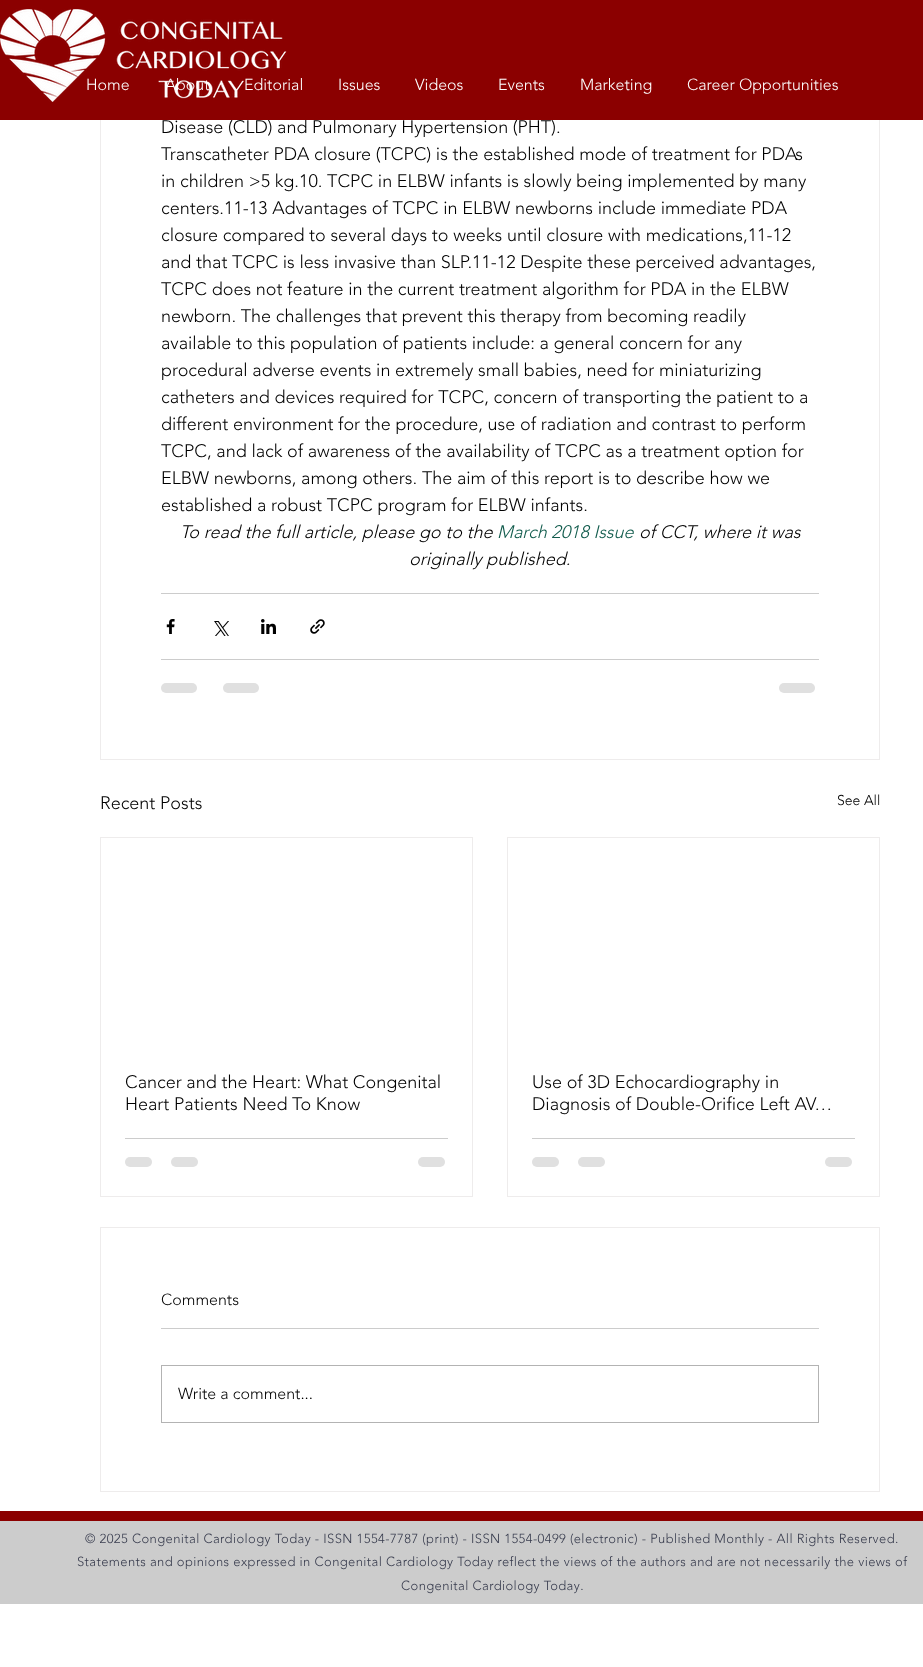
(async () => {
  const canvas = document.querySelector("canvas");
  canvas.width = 923;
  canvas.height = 1667;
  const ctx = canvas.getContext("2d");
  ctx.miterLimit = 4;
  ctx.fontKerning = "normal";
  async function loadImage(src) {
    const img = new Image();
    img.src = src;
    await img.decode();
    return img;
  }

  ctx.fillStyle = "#ffffff";
  ctx.fillRect(0, 0, 923, 1667);
  ctx.strokeStyle = "#eeecec";
  ctx.strokeRect(100.5, -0.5, 779, 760);
  ctx.fillStyle = "#cccccc";
  ctx.fillRect(161, 593, 658, 1);
  ctx.drawImage(await loadImage("img/2.png"), 166, 619, 9, 15);
  ctx.drawImage(await loadImage("img/3.png"), 214, 621, 15, 15);
  ctx.drawImage(await loadImage("img/4.png"), 261, 619, 15, 15);
  ctx.drawImage(await loadImage("img/5.png"), 310, 619, 15, 15);
  ctx.fillRect(161, 659, 658, 1);
  ctx.fillStyle = "#e0e0e0";
  ctx.beginPath();
  ctx.roundRect(161, 683, 36, 10, 5);
  ctx.fill();
  ctx.beginPath();
  ctx.roundRect(223, 683, 36, 10, 5);
  ctx.fill();
  ctx.beginPath();
  ctx.roundRect(779, 683, 36, 10, 5);
  ctx.fill();
  ctx.strokeRect(100.5, 837.5, 372, 359);
  ctx.fillStyle = "#cccccc";
  ctx.fillRect(125, 1138, 323, 1);
  ctx.fillStyle = "#e0e0e0";
  ctx.beginPath();
  ctx.roundRect(125, 1157, 27, 10, 5);
  ctx.fill();
  ctx.beginPath();
  ctx.roundRect(171, 1157, 27, 10, 5);
  ctx.fill();
  ctx.beginPath();
  ctx.roundRect(418, 1157, 27, 10, 5);
  ctx.fill();
  ctx.strokeRect(507.5, 837.5, 372, 359);
  ctx.fillStyle = "#cccccc";
  ctx.fillRect(532, 1138, 323, 1);
  ctx.fillStyle = "#e0e0e0";
  ctx.beginPath();
  ctx.roundRect(532, 1157, 27, 10, 5);
  ctx.fill();
  ctx.beginPath();
  ctx.roundRect(578, 1157, 27, 10, 5);
  ctx.fill();
  ctx.beginPath();
  ctx.roundRect(825, 1157, 27, 10, 5);
  ctx.fill();
  ctx.strokeRect(100.5, 1227.5, 779, 264);
  ctx.fillStyle = "#cccccc";
  ctx.fillRect(161, 1328, 658, 1);
  ctx.strokeStyle = "#b3b3b3";
  ctx.strokeRect(161.5, 1365.5, 657, 57);
  ctx.fillStyle = "#8b0000";
  ctx.fillRect(0, 1511, 923, 10);
  ctx.fillStyle = "#cccccc";
  ctx.fillRect(0, 1521, 923, 83);
  ctx.font = "300 18px 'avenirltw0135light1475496'";
  ctx.fillStyle = "#000000";
  ctx.fillText("Disease (CLD) and Pulmonary Hypertension (PHT).", 161, 133);
  ctx.fillStyle = "#8b0000";
  ctx.fillRect(0, 0, 923, 120);
  ctx.font = "300 16px 'avenirltw0135light1475496'";
  ctx.fillStyle = "#ffffff";
  for (const [text, x, y] of [
    ["Career Opportunities", 687, 90],
    ["Marketing", 580, 90],
    ["Events", 498, 90],
    ["Videos", 415, 90],
    ["Issues", 338, 90],
  ]) {
    ctx.fillText(text, x, y);
  }
  ctx.drawImage(await loadImage("img/1.png"), 0, 9, 287, 93);
  for (const [text, x, y] of [
    ["Editorial", 244, 90],
    ["About", 165, 90],
    ["Home", 86, 90],
  ]) {
    ctx.fillText(text, x, y);
  }
  ctx.font = "300 18px 'avenirltw0135light1475496'";
  ctx.fillStyle = "#000000";
  for (const [text, x, y] of [
    ["Transcatheter PDA closure (TCPC) is the established mode of treatment for PDAs", 161, 160],
    ["in children >5 kg.10. TCPC in ELBW infants is slowly being implemented by many", 161, 187],
    ["centers.11-13 Advantages of TCPC in ELBW newborns include immediate PDA", 161, 214],
    ["closure compared to several days to weeks until closure with medications,11-12", 161, 241],
    ["and that TCPC is less invasive than SLP.11-12 Despite these perceived advantages,", 161, 268],
    ["TCPC does not feature in the current treatment algorithm for PDA in the ELBW", 161, 295],
    ["newborn. The challenges that prevent this therapy from becoming readily", 161, 322],
    ["available to this population of patients include: a general concern for any", 161, 349],
    ["procedural adverse events in extremely small babies, need for miniaturizing", 161, 376],
    ["catheters and devices required for TCPC, concern of transporting the patient to a", 161, 403],
    ["different environment for the procedure, use of radiation and contrast to perform", 161, 430],
    ["TCPC, and lack of awareness of the availability of TCPC as a treatment option for", 161, 457],
    ["ELBW newborns, among others. The aim of this report is to describe how we", 161, 484],
    ["established a robust TCPC program for ELBW infants.", 161, 511],
  ]) {
    ctx.fillText(text, x, y);
  }
  ctx.font = "italic 300 18px 'avenirltw0135light1475496'";
  ctx.fillText("To read the full article, please go to the", 180, 538);
  ctx.fillStyle = "#125c4d";
  ctx.fillText("March 2018 Issue", 497, 538);
  ctx.fillStyle = "#000000";
  ctx.fillText("of CCT, where it was", 639, 538);
  ctx.fillText("originally published.", 409, 565);
  ctx.font = "300 18px 'avenirltw0135light1475496'";
  ctx.fillText("Recent Posts", 100, 809);
  ctx.font = "300 14px 'avenirltw0135light1475496'";
  ctx.fillText("See All", 837, 805);
  ctx.font = "300 18px 'avenirltw0135light1475496'";
  for (const [text, x, y] of [
    ["Cancer and the Heart: What Congenital", 125, 1088],
    ["Heart Patients Need To Know", 125, 1110],
    ["Use of 3D Echocardiography in", 532, 1088],
    ["Diagnosis of Double-Orifice Left AV…", 532, 1110],
  ]) {
    ctx.fillText(text, x, y);
  }
  ctx.font = "300 16px 'avenirltw0135light1475496'";
  ctx.fillText("Comments", 161, 1305);
  ctx.fillText("Write a comment...", 178, 1399);
  ctx.letterSpacing = "0.39px";
  ctx.font = "300 13px 'avenirltw0135light1475496'";
  ctx.fillStyle = "#373b4d";
  for (const [text, x, y] of [
    ["© 2025 Congenital Cardiology Today - ISSN 1554-7787 (print) - ISSN 1554-0499 (electronic) - Published Monthly - All Rights Reserved.", 85, 1543],
    ["Statements and opinions expressed in Congenital Cardiology Today reflect the views of the authors and are not necessarily the views of", 77, 1566],
    ["Congenital Cardiology Today.", 401, 1590],
  ]) {
    ctx.fillText(text, x, y);
  }
})();
